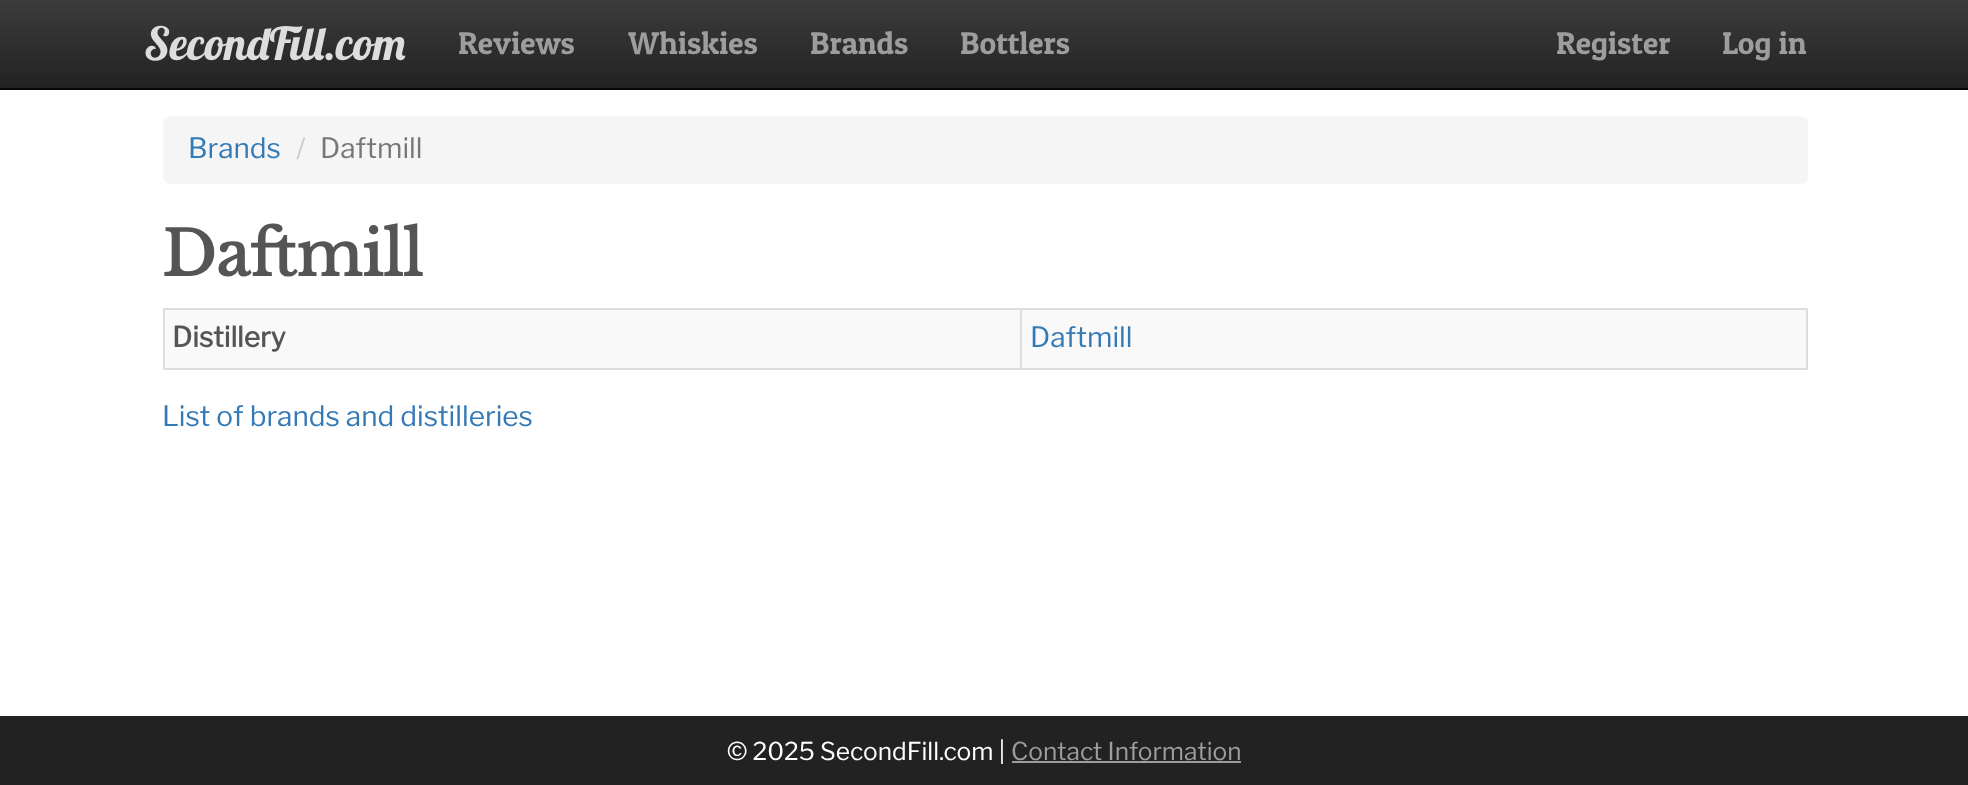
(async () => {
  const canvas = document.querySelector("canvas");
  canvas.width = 1968;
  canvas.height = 785;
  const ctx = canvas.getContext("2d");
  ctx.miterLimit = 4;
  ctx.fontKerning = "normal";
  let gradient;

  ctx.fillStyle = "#ffffff";
  ctx.fillRect(0, 0, 1968, 785);
  gradient = ctx.createLinearGradient(984, 0, 984, 88);
  gradient.addColorStop(0, "#3c3c3c");
  gradient.addColorStop(1, "#222222");
  ctx.fillStyle = gradient;
  ctx.fillRect(0, 0, 1968, 88);
  ctx.fillStyle = "#080808";
  ctx.fillRect(0, 88, 1968, 2);
  ctx.fillStyle = "#f5f5f5";
  ctx.beginPath();
  ctx.roundRect(163, 116, 1645, 68, 7);
  ctx.fill();
  for (const [x, y, w, h, color] of [
    [163, 308, 1645, 2, "#dddddd"],
    [1806, 308, 2, 61, "#dddddd"],
    [163, 368, 1645, 2, "#dddddd"],
    [163, 308, 2, 61, "#dddddd"],
    [165, 310, 1641, 58, "#f9f9f9"],
    [1020, 308, 2, 61, "#dddddd"],
    [0, 716, 1968, 69, "#222222"],
    [1012, 761, 229, 2, "#9d9d9d"],
  ]) {
    ctx.fillStyle = color;
    ctx.fillRect(x, y, w, h);
  }
  ctx.font = "45.5px Lobster";
  ctx.fillStyle = "#dddddd";
  ctx.fillText("SecondFill.com", 144, 60);
  ctx.font = "31.5px Patua One";
  ctx.fillStyle = "#9d9d9d";
  for (const [text, x, y] of [
    ["Reviews", 458, 54],
    ["Whiskies", 628, 54],
    ["Brands", 810, 54],
    ["Bottlers", 960, 54],
    ["Register", 1556, 54],
    ["Log in", 1722, 54],
  ]) {
    ctx.fillText(text, x, y);
  }
  ctx.font = "100 28px Libre Franklin";
  ctx.fillStyle = "#337ab7";
  ctx.fillText("Brands", 188, 158);
  ctx.fillStyle = "#cccccc";
  ctx.fillText("/", 296, 158);
  ctx.fillStyle = "#777777";
  ctx.fillText("Daftmill", 320, 158);
  ctx.font = "bold 61.25px Libre Baskerville";
  ctx.fillStyle = "#555555";
  ctx.fillText("Daftmill", 162, 276);
  ctx.font = "bold 28px Libre Franklin";
  ctx.fillText("Distillery", 172, 347);
  ctx.font = "100 28px Libre Franklin";
  ctx.fillStyle = "#337ab7";
  ctx.fillText("Daftmill", 1030, 347);
  ctx.fillText("List of brands and distilleries", 162, 426);
  ctx.font = "100 24.5px Libre Franklin";
  ctx.fillStyle = "#ffffff";
  ctx.fillText("© 2025 SecondFill.com |", 727, 760);
  ctx.fillStyle = "#9d9d9d";
  ctx.fillText("Contact Information", 1011, 760);
})();
